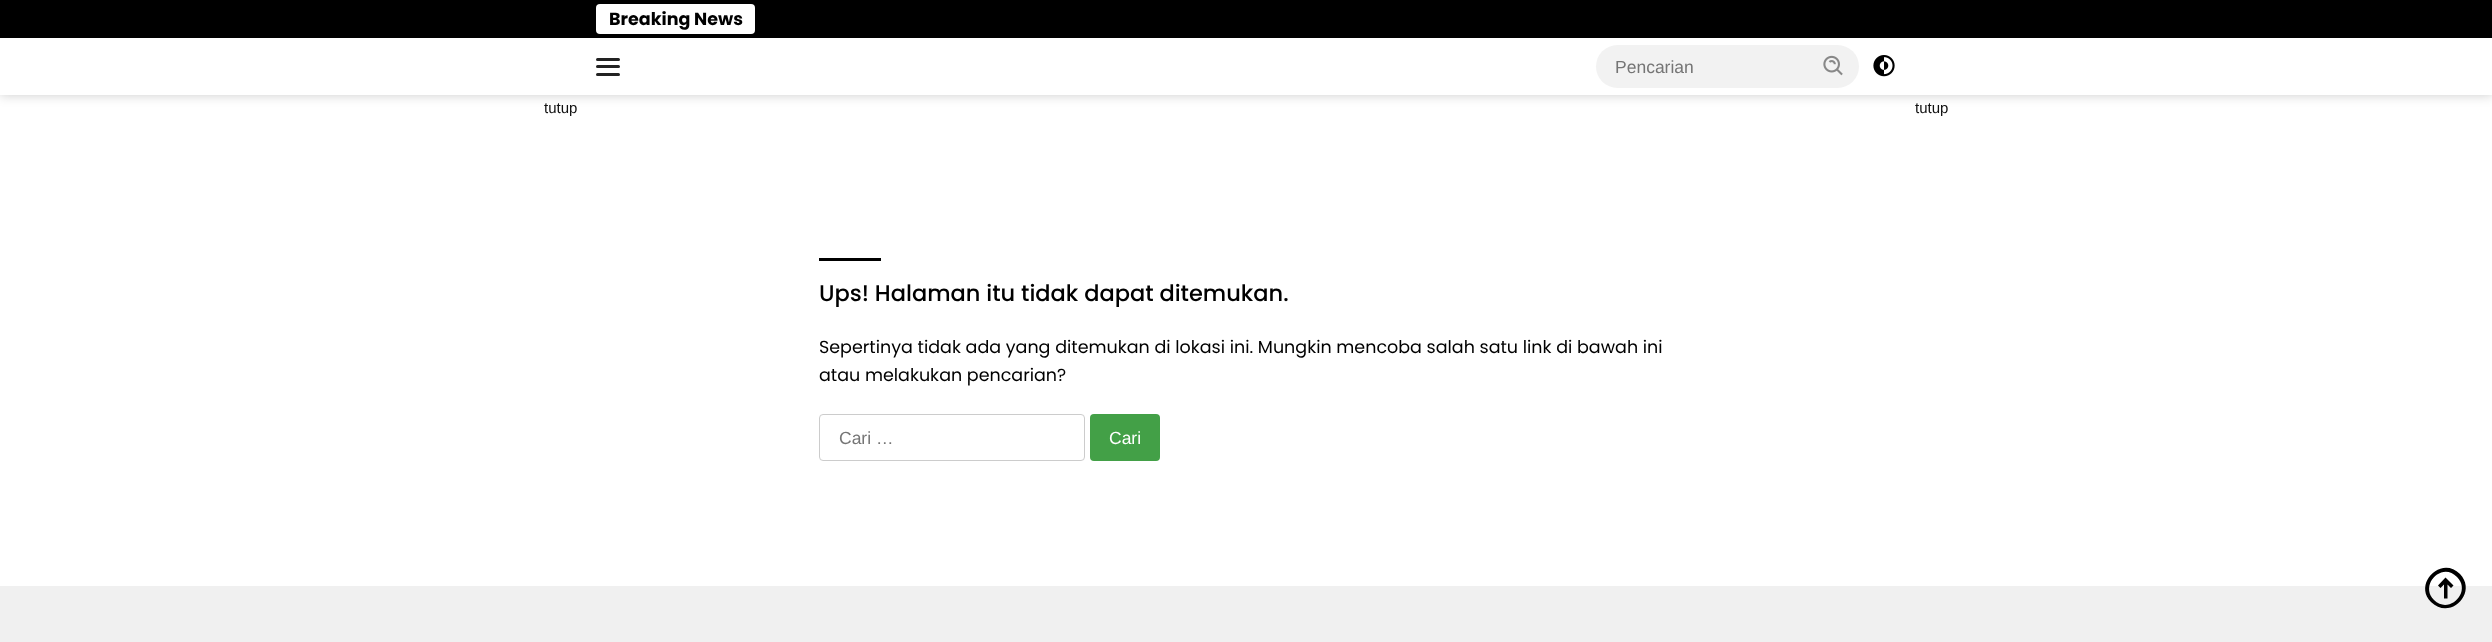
(async () => {
  const canvas = document.querySelector("canvas");
  canvas.width = 2492;
  canvas.height = 642;
  const ctx = canvas.getContext("2d");
  ctx.miterLimit = 4;
  ctx.fontKerning = "normal";
  async function loadImage(src) {
    const img = new Image();
    img.src = src;
    await img.decode();
    return img;
  }
  let path;

  ctx.fillStyle = "#ffffff";
  ctx.fillRect(0, 0, 2492, 642);
  ctx.fillStyle = "rgba(0, 0, 0, 0.2)";
  ctx.filter = "blur(6px)";
  ctx.beginPath();
  ctx.rect(0, 0, 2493, 95);
  ctx.fill();
  ctx.filter = "none";
  ctx.fillStyle = "#ffffff";
  ctx.fillRect(0, 38, 2492, 57);
  ctx.fillStyle = "#000000";
  ctx.fillRect(0, 0, 2492, 38);
  ctx.fillStyle = "#ffffff";
  ctx.beginPath();
  ctx.roundRect(596, 4, 159, 30, 4);
  ctx.fill();
  ctx.fillStyle = "#222222";
  ctx.beginPath();
  ctx.roundRect(596, 58, 24, 3, 1.5);
  ctx.fill();
  ctx.beginPath();
  ctx.roundRect(596, 65, 24, 3, 1.5);
  ctx.fill();
  ctx.beginPath();
  ctx.roundRect(596, 73, 24, 3, 1.5);
  ctx.fill();
  ctx.fillStyle = "#f2f2f2";
  ctx.beginPath();
  ctx.roundRect(1596, 45, 263, 43, 21.5);
  ctx.fill();
  ctx.drawImage(await loadImage("img/1.png"), 1823, 55, 20, 21);
  ctx.drawImage(await loadImage("img/2.png"), 1873, 55, 22, 22);
  ctx.fillStyle = "#000000";
  ctx.fillRect(819, 258, 62, 3);
  ctx.beginPath();
  ctx.roundRect(819.5, 414.5, 265, 46, 3.5);
  ctx.strokeStyle = "#cccccc";
  ctx.stroke();
  ctx.fillStyle = "#43a047";
  ctx.beginPath();
  ctx.roundRect(1090, 414, 70, 47, 4);
  ctx.fill();
  ctx.fillStyle = "#f0f0f0";
  ctx.fillRect(0, 586, 2492, 56);
  ctx.fillStyle = "#000000";
  path = new Path2D("M2451 588L2453.5 585.5L2445.5 577.5L2438 585.5L2440.5 588L2444 584.5V598.5H2447.5V584.5Z");
  ctx.fill(path);
  path = new Path2D("M2460 574C2441 555 2413 584 2431 602C2450 621 2478 593 2460 574ZM2457 577C2442 561 2419 585 2434 600C2449 615 2472 592 2457 577Z");
  ctx.fill(path, "evenodd");
  ctx.font = "bold 17.5px Poppins";
  ctx.fillText("Breaking News", 609, 25);
  ctx.font = "17.5px Liberation Sans";
  ctx.fillStyle = "#757575";
  ctx.fillText("Pencarian", 1615, 73);
  ctx.font = "15px Liberation Sans";
  ctx.fillStyle = "#111111";
  ctx.fillText("tutup", 544, 113);
  ctx.fillText("tutup", 1915, 113);
  ctx.font = "500 22.5px Poppins";
  ctx.fillStyle = "#000000";
  ctx.fillText("Ups! Halaman itu tidak dapat ditemukan.", 819, 301);
  ctx.font = "17.5px Poppins";
  ctx.fillText("Sepertinya tidak ada yang ditemukan di lokasi ini. Mungkin mencoba salah satu link di bawah ini", 819, 353);
  ctx.fillText("atau melakukan pencarian?", 819, 381);
  ctx.font = "17.5px Liberation Sans";
  ctx.fillStyle = "#757575";
  ctx.fillText("Cari …", 839, 444);
  ctx.fillStyle = "#ffffff";
  ctx.fillText("Cari", 1109, 444);
})();
